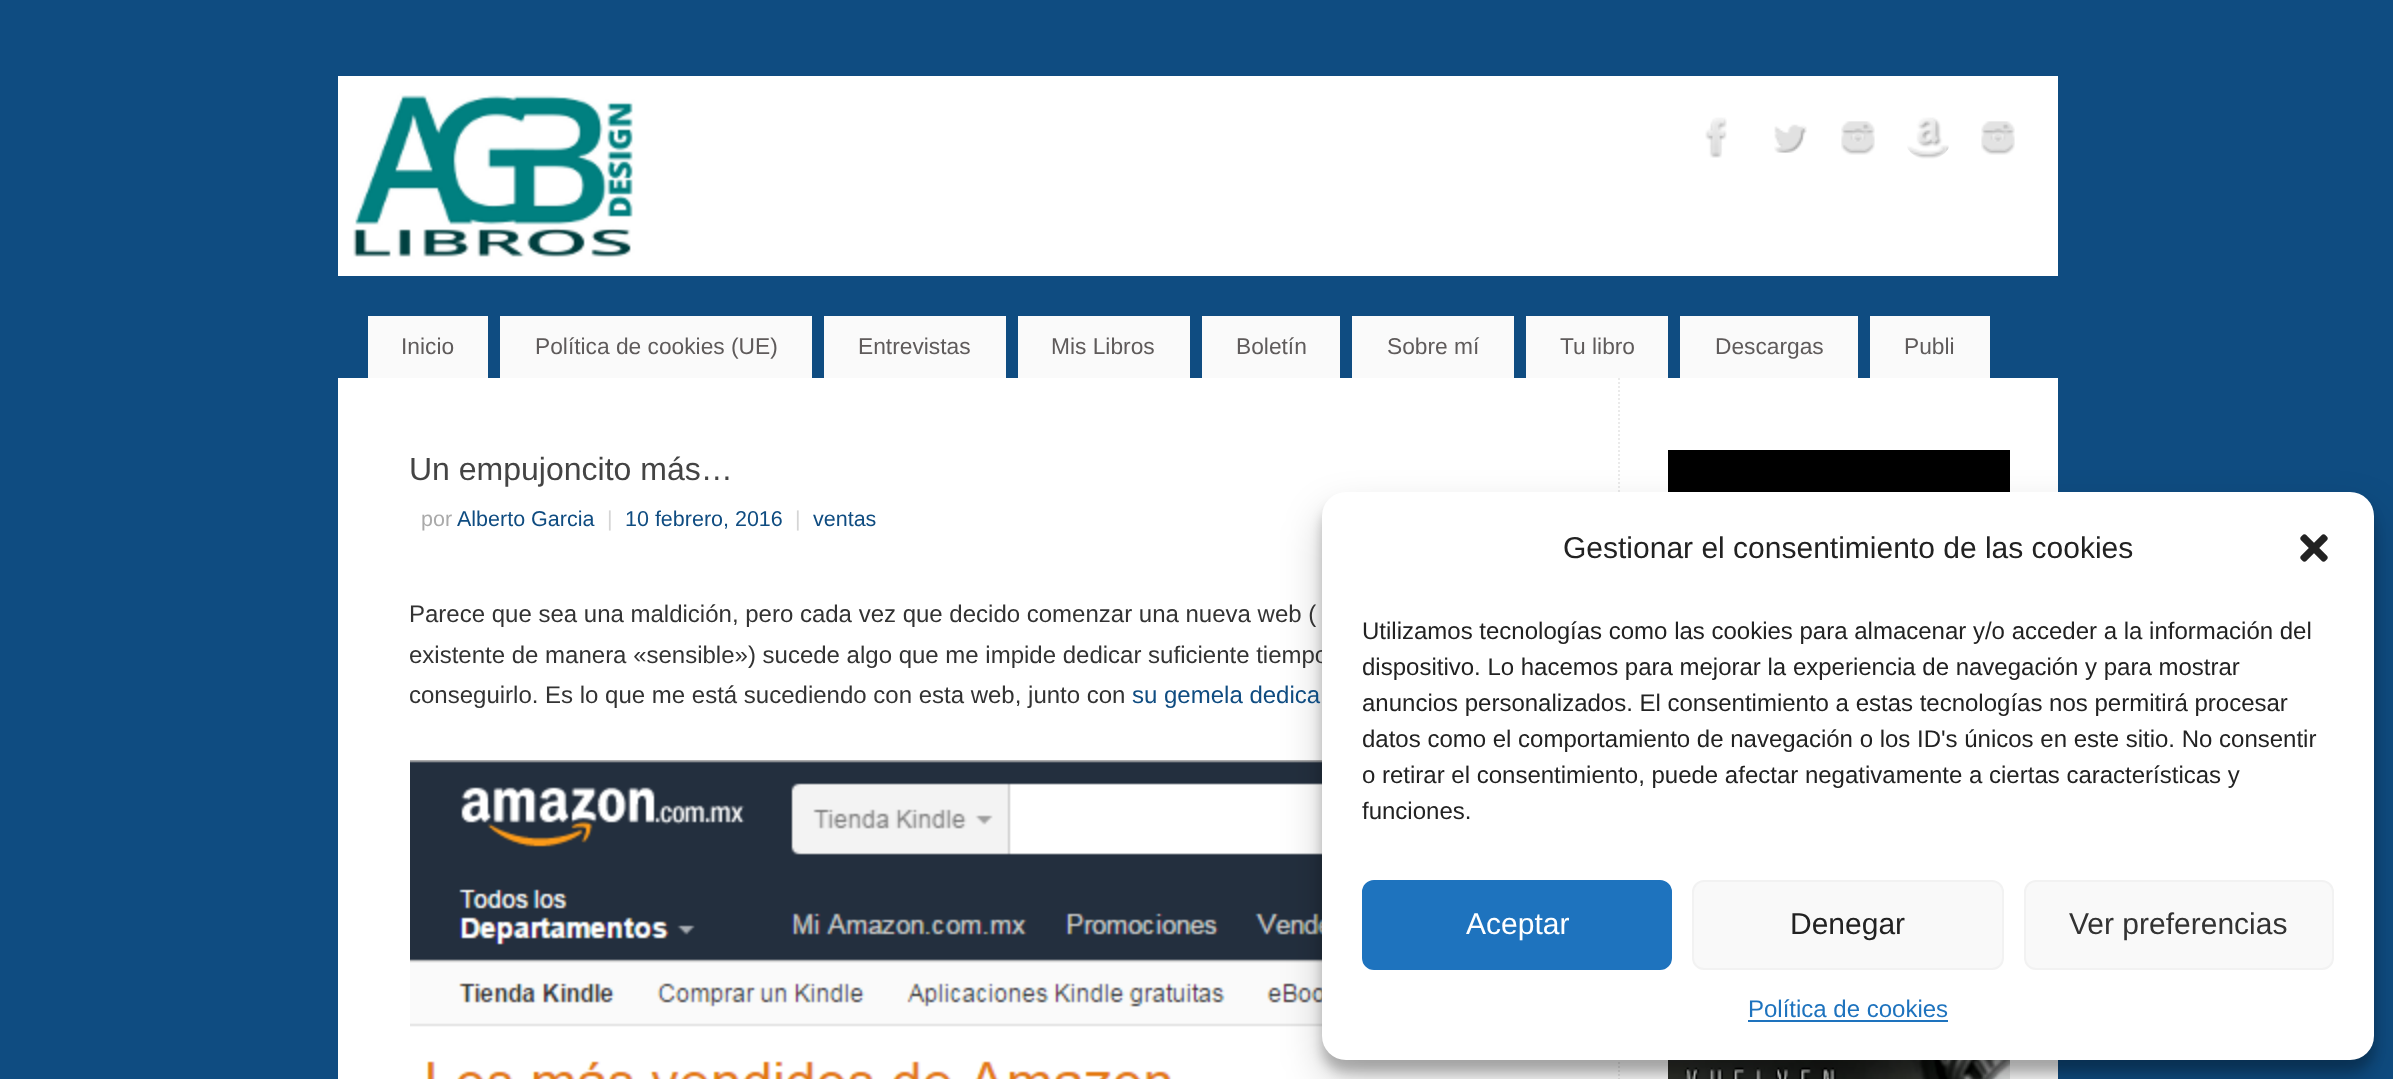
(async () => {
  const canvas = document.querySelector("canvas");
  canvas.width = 2393;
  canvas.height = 1079;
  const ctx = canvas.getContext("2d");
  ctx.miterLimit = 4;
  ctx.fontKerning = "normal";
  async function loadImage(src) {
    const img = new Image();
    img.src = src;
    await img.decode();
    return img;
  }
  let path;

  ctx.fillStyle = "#0f4c81";
  ctx.fillRect(0, 0, 2393, 1079);
  ctx.drawImage(await loadImage("img/1.png"), 338, 76, 1720, 200);
  ctx.drawImage(await loadImage("img/2.png"), 1705, 117, 22, 41);
  ctx.drawImage(await loadImage("img/3.png"), 1774, 124, 33, 29);
  ctx.drawImage(await loadImage("img/4.png"), 1841, 121, 34, 34);
  ctx.drawImage(await loadImage("img/5.png"), 1907, 117, 42, 42);
  ctx.drawImage(await loadImage("img/6.png"), 1981, 121, 34, 34);
  for (const [x, y, w, h, color] of [
    [368, 316, 120, 62, "#fafafa"],
    [500, 316, 312, 62, "#fafafa"],
    [824, 316, 182, 62, "#fafafa"],
    [1018, 316, 172, 62, "#fafafa"],
    [1202, 316, 138, 62, "#fafafa"],
    [1352, 316, 162, 62, "#fafafa"],
    [1526, 316, 142, 62, "#fafafa"],
    [1680, 316, 178, 62, "#fafafa"],
    [1870, 316, 120, 62, "#fafafa"],
    [338, 378, 1720, 701, "#ffffff"],
  ]) {
    ctx.fillStyle = color;
    ctx.fillRect(x, y, w, h);
  }
  ctx.drawImage(await loadImage("img/7.png"), 410, 760, 1090, 319);
  path = new Path2D("M1619 378V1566");
  ctx.strokeStyle = "#eaeaea";
  ctx.lineWidth = 2;
  ctx.setLineDash([2, 2]);
  ctx.stroke(path);
  ctx.drawImage(await loadImage("img/8.png"), 1668, 450, 342, 42);
  ctx.drawImage(await loadImage("img/9.png"), 1668, 1060, 342, 19);
  ctx.fillStyle = "rgba(0, 0, 0, 0.23)";
  ctx.filter = "blur(6px)";
  ctx.beginPath();
  ctx.roundRect(1322, 504, 1052, 568, 24);
  ctx.fill();
  ctx.filter = "none";
  ctx.fillStyle = "rgba(0, 0, 0, 0.19)";
  ctx.filter = "blur(20px)";
  ctx.beginPath();
  ctx.roundRect(1322, 512, 1052, 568, 24);
  ctx.fill();
  ctx.filter = "none";
  ctx.font = "22.75px Liberation Sans";
  ctx.fillStyle = "#5f5b5b";
  for (const [text, x, y] of [
    ["Inicio", 401, 354],
    ["Política de cookies (UE)", 535, 354],
    ["Entrevistas", 858, 354],
    ["Mis Libros", 1051, 354],
    ["Boletín", 1236, 354],
    ["Sobre mí", 1387, 354],
    ["Tu libro", 1560, 354],
    ["Descargas", 1715, 354],
    ["Publi", 1904, 354],
  ]) {
    ctx.fillText(text, x, y);
  }
  ctx.font = "32px Liberation Sans";
  ctx.fillStyle = "#444444";
  ctx.fillText("Un empujoncito más…", 409, 480);
  ctx.font = "21.5px Liberation Sans";
  ctx.fillStyle = "#aaaaaa";
  ctx.fillText("por", 421, 526);
  ctx.fillStyle = "#0f4c81";
  ctx.fillText("Alberto Garcia", 457, 526);
  ctx.fillStyle = "#d5d5d5";
  ctx.fillText("|", 607, 526);
  ctx.fillStyle = "#0f4c81";
  ctx.fillText("10 febrero, 2016", 625, 526);
  ctx.fillStyle = "#d5d5d5";
  ctx.fillText("|", 795, 526);
  ctx.fillStyle = "#0f4c81";
  ctx.fillText("ventas", 813, 526);
  ctx.font = "24px Liberation Sans";
  ctx.fillStyle = "#333333";
  for (const [text, x, y] of [
    ["Parece que sea una maldición, pero cada vez que decido comenzar una nueva web (", 409, 622],
    ["existente de manera «sensible») sucede algo que me impide dedicar suficiente tiempo", 409, 663],
    ["conseguirlo. Es lo que me está sucediendo con esta web, junto con", 409, 703],
  ]) {
    ctx.fillText(text, x, y);
  }
  ctx.fillStyle = "#0f4c81";
  ctx.fillText("su gemela dedica", 1132, 703);
  ctx.fillStyle = "#ffffff";
  ctx.beginPath();
  ctx.roundRect(1322, 492, 1052, 568, 24);
  ctx.fill();
  ctx.font = "30px Liberation Sans";
  ctx.fillStyle = "#222222";
  ctx.fillText("Gestionar el consentimiento de las cookies", 1563, 558);
  ctx.drawImage(await loadImage("img/10.png"), 2300, 534, 28, 28);
  ctx.font = "24px Liberation Sans";
  for (const [text, x, y] of [
    ["Utilizamos tecnologías como las cookies para almacenar y/o acceder a la información del", 1362, 639],
    ["dispositivo. Lo hacemos para mejorar la experiencia de navegación y para mostrar", 1362, 675],
    ["anuncios personalizados. El consentimiento a estas tecnologías nos permitirá procesar", 1362, 711],
    ["datos como el comportamiento de navegación o los ID's únicos en este sitio. No consentir", 1362, 747],
    ["o retirar el consentimiento, puede afectar negativamente a ciertas características y", 1362, 783],
    ["funciones.", 1362, 819],
  ]) {
    ctx.fillText(text, x, y);
  }
  ctx.fillStyle = "#1e73be";
  ctx.beginPath();
  ctx.roundRect(1363, 881, 308, 88, 11);
  ctx.fill();
  ctx.strokeStyle = "#1e73be";
  ctx.setLineDash([]);
  ctx.stroke();
  ctx.font = "30px Liberation Sans";
  ctx.fillStyle = "#ffffff";
  ctx.fillText("Aceptar", 1466, 934);
  ctx.fillStyle = "#f9f9f9";
  ctx.beginPath();
  ctx.roundRect(1693, 881, 310, 88, 11);
  ctx.fill();
  ctx.strokeStyle = "#f2f2f2";
  ctx.stroke();
  ctx.fillStyle = "#222222";
  ctx.fillText("Denegar", 1790, 934);
  ctx.fillStyle = "#f9f9f9";
  ctx.beginPath();
  ctx.roundRect(2025, 881, 308, 88, 11);
  ctx.fill();
  ctx.stroke();
  ctx.fillStyle = "#333333";
  ctx.fillText("Ver preferencias", 2069, 934);
  ctx.font = "24px Liberation Sans";
  ctx.fillStyle = "#1e73be";
  ctx.fillText("Política de cookies", 1748, 1017);
  ctx.fillRect(1748, 1020, 200, 2);
})();
